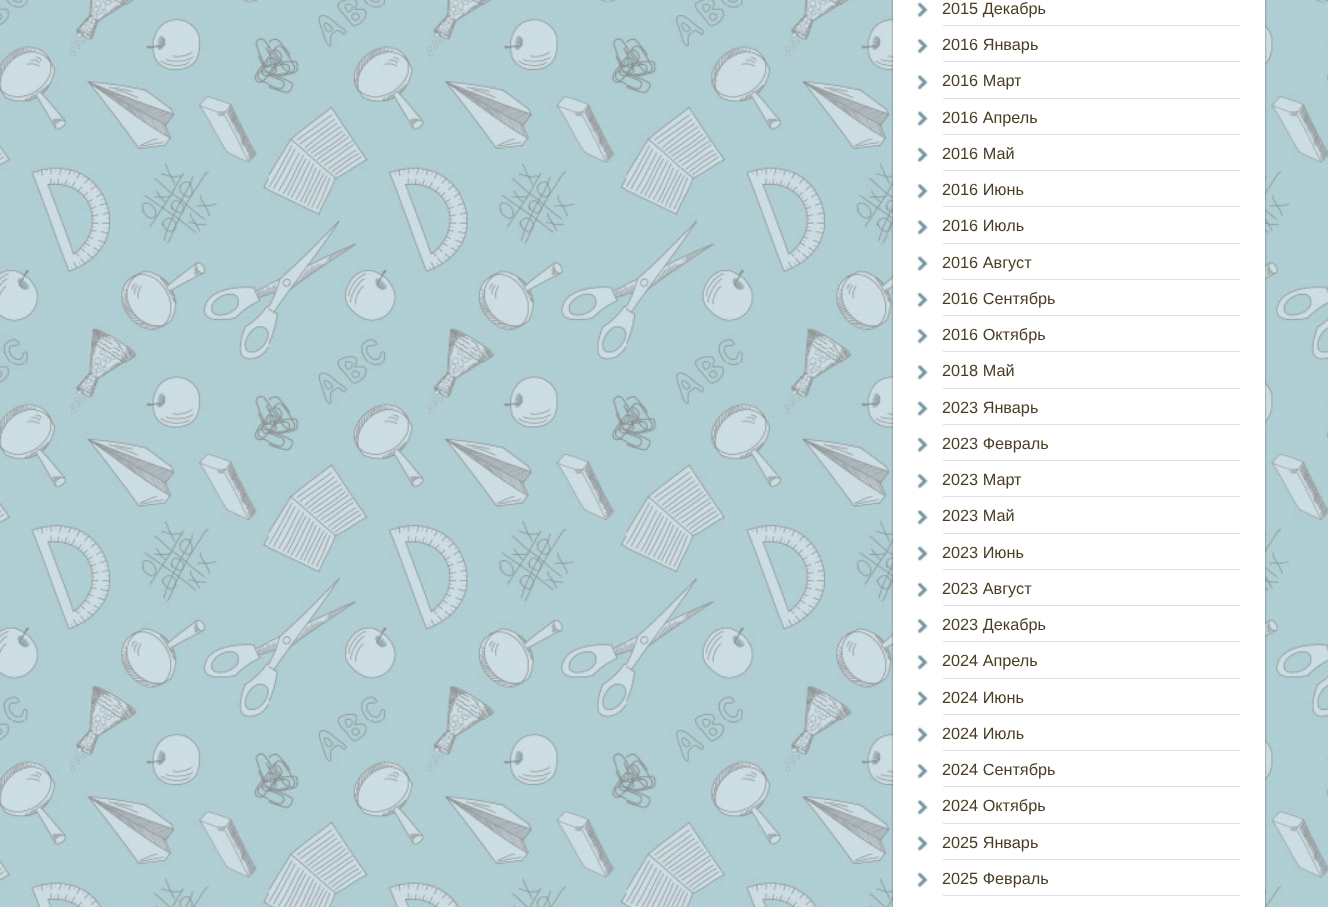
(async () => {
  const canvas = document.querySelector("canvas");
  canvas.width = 1328;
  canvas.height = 907;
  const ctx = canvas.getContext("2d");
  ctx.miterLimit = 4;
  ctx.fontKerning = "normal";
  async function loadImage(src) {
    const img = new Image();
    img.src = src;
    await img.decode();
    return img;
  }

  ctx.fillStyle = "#ffffff";
  ctx.fillRect(0, 0, 1328, 907);
  ctx.drawImage(await loadImage("img/1.png"), 0, 0, 1328, 907);
  ctx.fillStyle = "rgba(0, 0, 0, 0.5)";
  ctx.filter = "blur(1px)";
  ctx.beginPath();
  ctx.roundRect(893, -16, 372, 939, 13);
  ctx.fill();
  ctx.filter = "none";
  ctx.fillStyle = "#ffffff";
  ctx.fillRect(893, 0, 372, 907);
  ctx.drawImage(await loadImage("img/2.png"), 917, 2, 11, 16);
  ctx.fillStyle = "#dedede";
  ctx.fillRect(943, 25, 297, 1);
  ctx.drawImage(await loadImage("img/3.png"), 917, 38, 11, 16);
  ctx.fillRect(943, 61, 297, 1);
  ctx.drawImage(await loadImage("img/4.png"), 917, 75, 11, 15);
  ctx.fillRect(943, 98, 297, 1);
  ctx.drawImage(await loadImage("img/5.png"), 917, 111, 11, 16);
  ctx.fillRect(943, 134, 297, 1);
  ctx.drawImage(await loadImage("img/2.png"), 917, 147, 11, 16);
  ctx.fillRect(943, 170, 297, 1);
  ctx.drawImage(await loadImage("img/3.png"), 917, 183, 11, 16);
  ctx.fillRect(943, 206, 297, 1);
  ctx.drawImage(await loadImage("img/4.png"), 917, 220, 11, 15);
  ctx.fillRect(943, 243, 297, 1);
  ctx.drawImage(await loadImage("img/6.png"), 917, 256, 11, 16);
  ctx.fillRect(943, 279, 297, 1);
  ctx.drawImage(await loadImage("img/2.png"), 917, 292, 11, 16);
  ctx.fillRect(943, 315, 297, 1);
  ctx.drawImage(await loadImage("img/3.png"), 917, 328, 11, 16);
  ctx.fillRect(943, 351, 297, 1);
  ctx.drawImage(await loadImage("img/4.png"), 917, 365, 11, 15);
  ctx.fillRect(943, 388, 297, 1);
  ctx.drawImage(await loadImage("img/6.png"), 917, 401, 11, 16);
  ctx.fillRect(943, 424, 297, 1);
  ctx.drawImage(await loadImage("img/2.png"), 917, 437, 11, 16);
  ctx.fillRect(943, 460, 297, 1);
  ctx.drawImage(await loadImage("img/3.png"), 917, 473, 11, 16);
  ctx.fillRect(943, 496, 297, 1);
  ctx.drawImage(await loadImage("img/4.png"), 917, 510, 11, 15);
  ctx.fillRect(943, 533, 297, 1);
  ctx.drawImage(await loadImage("img/7.png"), 917, 546, 11, 16);
  ctx.fillRect(943, 569, 297, 1);
  ctx.drawImage(await loadImage("img/2.png"), 917, 582, 11, 16);
  ctx.fillRect(943, 605, 297, 1);
  ctx.drawImage(await loadImage("img/3.png"), 917, 618, 11, 16);
  ctx.fillRect(943, 641, 297, 1);
  ctx.drawImage(await loadImage("img/4.png"), 917, 655, 11, 15);
  ctx.fillRect(943, 678, 297, 1);
  ctx.drawImage(await loadImage("img/8.png"), 917, 691, 11, 16);
  ctx.fillRect(943, 714, 297, 1);
  ctx.drawImage(await loadImage("img/2.png"), 917, 727, 11, 16);
  ctx.fillRect(943, 750, 297, 1);
  ctx.drawImage(await loadImage("img/3.png"), 917, 763, 11, 16);
  ctx.fillRect(943, 786, 297, 1);
  ctx.drawImage(await loadImage("img/4.png"), 917, 800, 11, 15);
  ctx.fillRect(943, 823, 297, 1);
  ctx.drawImage(await loadImage("img/6.png"), 917, 836, 11, 16);
  ctx.fillRect(943, 859, 297, 1);
  ctx.drawImage(await loadImage("img/2.png"), 917, 872, 11, 16);
  ctx.fillRect(943, 895, 297, 1);
  ctx.font = "16.25px Liberation Sans";
  ctx.fillStyle = "#493e24";
  for (const [text, x, y] of [
    ["2015 Декабрь", 942, 14],
    ["2016 Январь", 942, 50],
    ["2016 Март", 942, 86],
    ["2016 Апрель", 942, 123],
    ["2016 Май", 942, 159],
    ["2016 Июнь", 942, 195],
    ["2016 Июль", 942, 231],
    ["2016 Август", 942, 268],
    ["2016 Сентябрь", 942, 304],
    ["2016 Октябрь", 942, 340],
    ["2018 Май", 942, 376],
    ["2023 Январь", 942, 413],
    ["2023 Февраль", 942, 449],
    ["2023 Март", 942, 485],
    ["2023 Май", 942, 521],
    ["2023 Июнь", 942, 558],
    ["2023 Август", 942, 594],
    ["2023 Декабрь", 942, 630],
    ["2024 Апрель", 942, 666],
    ["2024 Июнь", 942, 703],
    ["2024 Июль", 942, 739],
    ["2024 Сентябрь", 942, 775],
    ["2024 Октябрь", 942, 811],
    ["2025 Январь", 942, 848],
    ["2025 Февраль", 942, 884],
  ]) {
    ctx.fillText(text, x, y);
  }
})();
